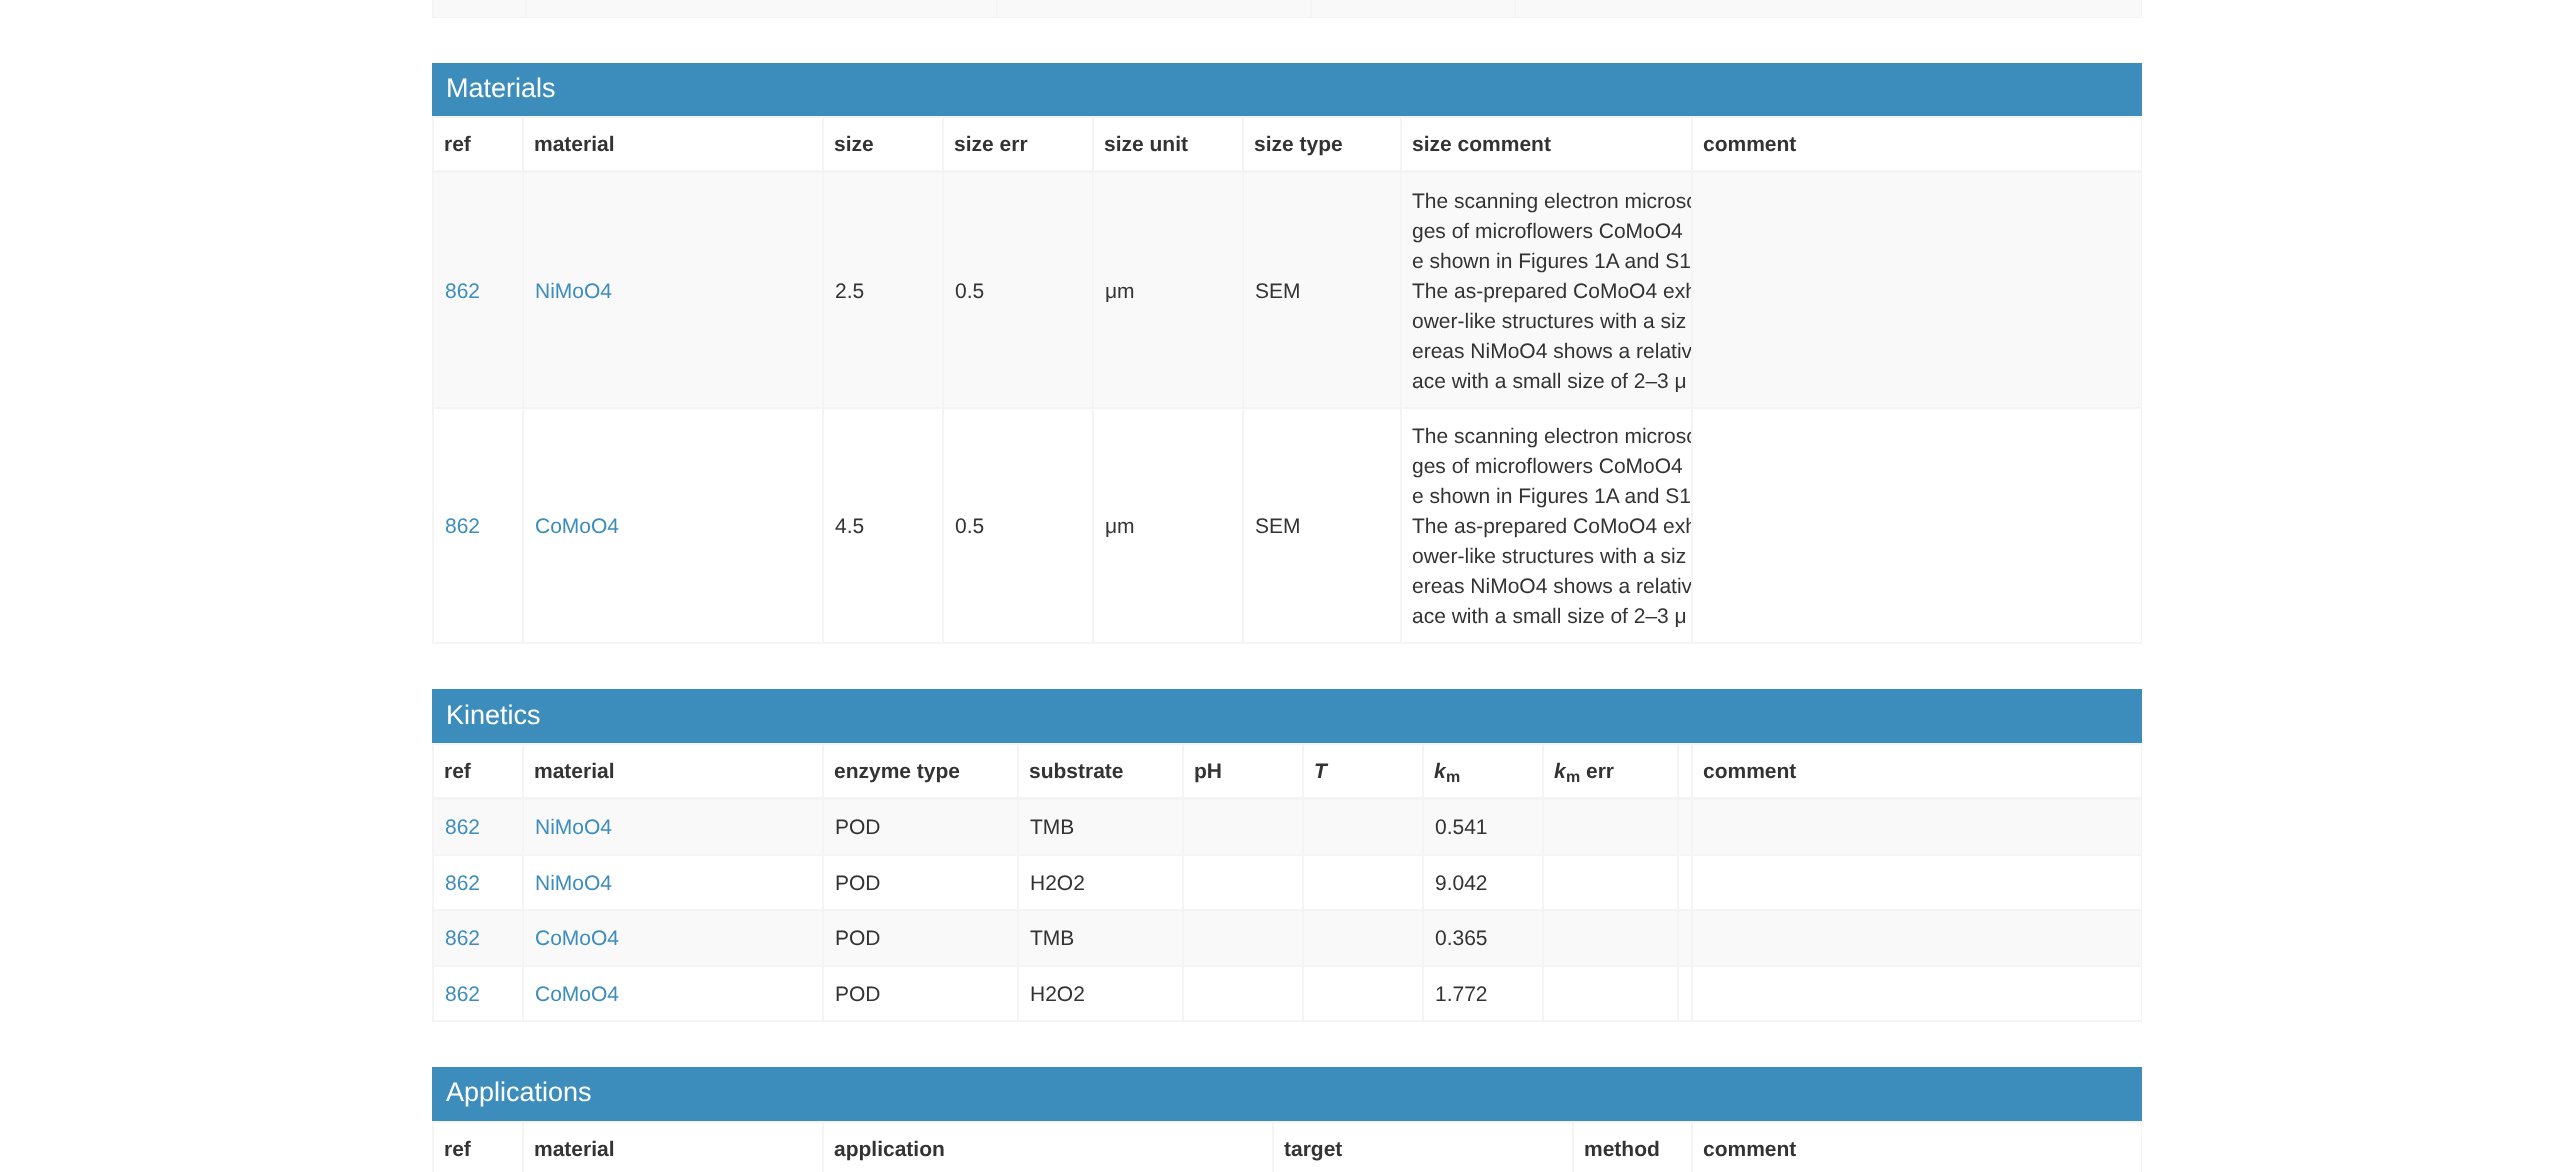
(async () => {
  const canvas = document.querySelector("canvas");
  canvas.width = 2572;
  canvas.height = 1172;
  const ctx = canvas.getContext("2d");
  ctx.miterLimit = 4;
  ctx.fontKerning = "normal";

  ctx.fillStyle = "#ffffff";
  ctx.fillRect(0, 0, 2572, 1172);
  for (const [x, y, w, h, color] of [
    [2141, 0, 1, 18, "#f4f4f4"],
    [432, 17, 1710, 1, "#f4f4f4"],
    [432, 0, 2, 18, "#f4f4f4"],
    [434, 0, 1707, 17, "#f9f9f9"],
    [525, 0, 2, 18, "#f4f4f4"],
    [996, 0, 2, 18, "#f4f4f4"],
    [1310, 0, 2, 18, "#f4f4f4"],
    [1514, 0, 2, 18, "#f4f4f4"],
    [432, 63, 1710, 53, "#3c8dbc"],
    [432, 116, 1710, 2, "#f4f4f4"],
    [824, 173, 867, 234, "#f9f9f9"],
    [1400, 407, 291, 2, "#f4f4f4"],
    [432, 642, 1710, 2, "#f4f4f4"],
    [1400, 407, 2, 237, "#f4f4f4"],
    [1242, 407, 159, 2, "#f4f4f4"],
    [1242, 407, 2, 237, "#f4f4f4"],
    [1092, 407, 152, 2, "#f4f4f4"],
    [1092, 407, 2, 237, "#f4f4f4"],
    [942, 407, 152, 2, "#f4f4f4"],
    [942, 407, 2, 237, "#f4f4f4"],
    [822, 407, 122, 2, "#f4f4f4"],
    [942, 116, 2, 292, "#f4f4f4"],
    [1092, 116, 2, 292, "#f4f4f4"],
    [1242, 116, 2, 292, "#f4f4f4"],
    [1400, 116, 2, 292, "#f4f4f4"],
    [821, 170, 870, 3, "#f4f4f4"],
    [821, 170, 1, 3, "#ffffff"],
    [432, 116, 2, 526, "#f4f4f4"],
    [434, 173, 388, 234, "#f9f9f9"],
    [822, 407, 2, 235, "#f4f4f4"],
    [522, 407, 302, 2, "#f4f4f4"],
    [522, 407, 2, 235, "#f4f4f4"],
    [432, 407, 92, 2, "#f4f4f4"],
    [522, 116, 2, 292, "#f4f4f4"],
    [822, 116, 2, 292, "#f4f4f4"],
    [432, 170, 392, 3, "#f4f4f4"],
    [2141, 116, 1, 526, "#f4f4f4"],
    [432, 689, 1710, 54, "#3c8dbc"],
    [432, 743, 1710, 2, "#f4f4f4"],
    [824, 800, 867, 54, "#f9f9f9"],
    [1677, 854, 14, 2, "#f4f4f4"],
    [1677, 909, 14, 2, "#f4f4f4"],
    [824, 911, 867, 54, "#f9f9f9"],
    [1677, 965, 14, 2, "#f4f4f4"],
    [432, 1020, 1710, 2, "#f4f4f4"],
    [1677, 965, 2, 57, "#f4f4f4"],
    [1542, 965, 137, 2, "#f4f4f4"],
    [1677, 909, 2, 57, "#f4f4f4"],
    [1542, 909, 137, 2, "#f4f4f4"],
    [1677, 854, 2, 57, "#f4f4f4"],
    [1542, 854, 137, 2, "#f4f4f4"],
    [1542, 965, 2, 57, "#f4f4f4"],
    [1422, 965, 122, 2, "#f4f4f4"],
    [1542, 909, 2, 57, "#f4f4f4"],
    [1422, 909, 122, 2, "#f4f4f4"],
    [1542, 854, 2, 57, "#f4f4f4"],
    [1422, 854, 122, 2, "#f4f4f4"],
    [1422, 965, 2, 57, "#f4f4f4"],
    [1302, 965, 122, 2, "#f4f4f4"],
    [1422, 909, 2, 57, "#f4f4f4"],
    [1302, 909, 122, 2, "#f4f4f4"],
    [1422, 854, 2, 57, "#f4f4f4"],
    [1302, 854, 122, 2, "#f4f4f4"],
    [1302, 965, 2, 57, "#f4f4f4"],
    [1182, 965, 122, 2, "#f4f4f4"],
    [1302, 909, 2, 57, "#f4f4f4"],
    [1182, 909, 122, 2, "#f4f4f4"],
    [1302, 854, 2, 57, "#f4f4f4"],
    [1182, 854, 122, 2, "#f4f4f4"],
    [1182, 965, 2, 57, "#f4f4f4"],
    [1017, 965, 167, 2, "#f4f4f4"],
    [1182, 909, 2, 57, "#f4f4f4"],
    [1017, 909, 167, 2, "#f4f4f4"],
    [1182, 854, 2, 57, "#f4f4f4"],
    [1017, 854, 167, 2, "#f4f4f4"],
    [1017, 965, 2, 57, "#f4f4f4"],
    [822, 965, 197, 2, "#f4f4f4"],
    [1017, 909, 2, 57, "#f4f4f4"],
    [822, 909, 197, 2, "#f4f4f4"],
    [1017, 854, 2, 57, "#f4f4f4"],
    [822, 854, 197, 2, "#f4f4f4"],
    [1017, 743, 2, 112, "#f4f4f4"],
    [1182, 743, 2, 112, "#f4f4f4"],
    [1302, 743, 2, 112, "#f4f4f4"],
    [1422, 743, 2, 112, "#f4f4f4"],
    [1542, 743, 2, 112, "#f4f4f4"],
    [1677, 743, 2, 112, "#f4f4f4"],
    [821, 797, 870, 3, "#f4f4f4"],
    [821, 797, 1, 3, "#ffffff"],
    [432, 743, 2, 277, "#f4f4f4"],
    [434, 800, 388, 54, "#f9f9f9"],
    [822, 965, 2, 55, "#f4f4f4"],
    [522, 965, 302, 2, "#f4f4f4"],
    [822, 909, 2, 57, "#f4f4f4"],
    [522, 909, 302, 2, "#f4f4f4"],
    [822, 854, 2, 57, "#f4f4f4"],
    [522, 854, 302, 2, "#f4f4f4"],
    [434, 911, 388, 54, "#f9f9f9"],
    [522, 965, 2, 55, "#f4f4f4"],
    [432, 965, 92, 2, "#f4f4f4"],
    [522, 909, 2, 57, "#f4f4f4"],
    [432, 909, 92, 2, "#f4f4f4"],
    [522, 854, 2, 57, "#f4f4f4"],
    [432, 854, 92, 2, "#f4f4f4"],
    [522, 743, 2, 112, "#f4f4f4"],
    [822, 743, 2, 112, "#f4f4f4"],
    [432, 797, 392, 3, "#f4f4f4"],
    [2141, 743, 1, 277, "#f4f4f4"],
    [1691, 854, 451, 2, "#f4f4f4"],
    [1691, 909, 451, 2, "#f4f4f4"],
    [1691, 965, 451, 2, "#f4f4f4"],
    [1691, 965, 2, 55, "#f4f4f4"],
    [1691, 909, 2, 57, "#f4f4f4"],
    [1691, 743, 2, 168, "#f4f4f4"],
    [1693, 800, 448, 54, "#f9f9f9"],
    [1693, 911, 448, 54, "#f9f9f9"],
    [1691, 797, 451, 3, "#f4f4f4"],
    [432, 1067, 1710, 54, "#3c8dbc"],
    [432, 1121, 1710, 2, "#f4f4f4"],
    [432, 1121, 2, 51, "#f4f4f4"],
    [522, 1121, 2, 51, "#f4f4f4"],
    [822, 1121, 2, 51, "#f4f4f4"],
    [1272, 1121, 2, 51, "#f4f4f4"],
    [1572, 1121, 2, 51, "#f4f4f4"],
    [2141, 1121, 1, 51, "#f4f4f4"],
    [1691, 1121, 2, 51, "#f4f4f4"],
  ]) {
    ctx.fillStyle = color;
    ctx.fillRect(x, y, w, h);
  }
  ctx.font = "27px Liberation Sans";
  ctx.fillStyle = "#ffffff";
  ctx.fillText("Materials", 446, 97);
  ctx.font = "bold 21px Liberation Sans";
  ctx.fillStyle = "#333333";
  ctx.fillText("ref", 444, 151);
  ctx.fillText("material", 534, 151);
  ctx.font = "21px Liberation Sans";
  ctx.fillStyle = "#3c8dbc";
  for (const [text, x, y] of [
    ["862", 445, 298],
    ["NiMoO4", 535, 298],
    ["862", 445, 533],
    ["CoMoO4", 535, 533],
  ]) {
    ctx.fillText(text, x, y);
  }
  ctx.font = "bold 21px Liberation Sans";
  ctx.fillStyle = "#333333";
  for (const [text, x, y] of [
    ["size", 834, 151],
    ["size err", 954, 151],
    ["size unit", 1104, 151],
    ["size type", 1254, 151],
    ["size comment", 1412, 151],
  ]) {
    ctx.fillText(text, x, y);
  }
  ctx.font = "21px Liberation Sans";
  for (const [text, x, y] of [
    ["2.5", 835, 298],
    ["0.5", 955, 298],
    ["μm", 1105, 298],
    ["SEM", 1255, 298],
    ["The scanning electron microsc", 1412, 208],
    ["ges of microflowers CoMoO4", 1412, 238],
    ["e shown in Figures 1A and S1", 1412, 268],
    ["The as-prepared CoMoO4 exh", 1412, 298],
    ["ower-like structures with a siz", 1412, 328],
    ["ereas NiMoO4 shows a relativ", 1412, 358],
    ["ace with a small size of 2–3 μ", 1412, 388],
    ["4.5", 835, 533],
    ["0.5", 955, 533],
    ["μm", 1105, 533],
    ["SEM", 1255, 533],
    ["The scanning electron microsc", 1412, 443],
    ["ges of microflowers CoMoO4", 1412, 473],
    ["e shown in Figures 1A and S1", 1412, 503],
    ["The as-prepared CoMoO4 exh", 1412, 533],
    ["ower-like structures with a siz", 1412, 563],
    ["ereas NiMoO4 shows a relativ", 1412, 593],
    ["ace with a small size of 2–3 μ", 1412, 623],
  ]) {
    ctx.fillText(text, x, y);
  }
  for (const [x, y, w, h, color] of [
    [1693, 196, 4, 337, "#ffffff"],
    [1691, 407, 451, 2, "#f4f4f4"],
    [1691, 116, 2, 526, "#f4f4f4"],
    [1693, 173, 448, 234, "#f9f9f9"],
    [1691, 170, 451, 3, "#f4f4f4"],
  ]) {
    ctx.fillStyle = color;
    ctx.fillRect(x, y, w, h);
  }
  ctx.font = "bold 21px Liberation Sans";
  ctx.fillStyle = "#333333";
  ctx.fillText("comment", 1703, 151);
  ctx.font = "27px Liberation Sans";
  ctx.fillStyle = "#ffffff";
  ctx.fillText("Kinetics", 446, 724);
  ctx.font = "bold 21px Liberation Sans";
  ctx.fillStyle = "#333333";
  ctx.fillText("ref", 444, 778);
  ctx.fillText("material", 534, 778);
  ctx.font = "21px Liberation Sans";
  ctx.fillStyle = "#3c8dbc";
  for (const [text, x, y] of [
    ["862", 445, 834],
    ["NiMoO4", 535, 834],
    ["862", 445, 890],
    ["NiMoO4", 535, 890],
    ["862", 445, 945],
    ["CoMoO4", 535, 945],
    ["862", 445, 1001],
    ["CoMoO4", 535, 1001],
  ]) {
    ctx.fillText(text, x, y);
  }
  ctx.font = "bold 21px Liberation Sans";
  ctx.fillStyle = "#333333";
  for (const [text, x, y] of [
    ["enzyme type", 834, 778],
    ["substrate", 1029, 778],
    ["pH", 1194, 778],
  ]) {
    ctx.fillText(text, x, y);
  }
  ctx.font = "italic bold 21px Liberation Sans";
  ctx.fillText("T", 1314, 778);
  ctx.fillText("k", 1434, 778);
  ctx.font = "bold 16px Liberation Sans";
  ctx.fillText("m", 1446, 782);
  ctx.font = "italic bold 21px Liberation Sans";
  ctx.fillText("k", 1554, 778);
  ctx.font = "bold 16px Liberation Sans";
  ctx.fillText("m", 1566, 782);
  ctx.font = "bold 21px Liberation Sans";
  ctx.fillText("err", 1586, 778);
  ctx.font = "21px Liberation Sans";
  for (const [text, x, y] of [
    ["POD", 835, 834],
    ["TMB", 1030, 834],
    ["0.541", 1435, 834],
    ["POD", 835, 890],
    ["H2O2", 1030, 890],
    ["9.042", 1435, 890],
    ["POD", 835, 945],
    ["TMB", 1030, 945],
    ["0.365", 1435, 945],
    ["POD", 835, 1001],
    ["H2O2", 1030, 1001],
    ["1.772", 1435, 1001],
  ]) {
    ctx.fillText(text, x, y);
  }
  ctx.font = "bold 21px Liberation Sans";
  ctx.fillText("comment", 1703, 778);
  ctx.font = "27px Liberation Sans";
  ctx.fillStyle = "#ffffff";
  ctx.fillText("Applications", 446, 1101);
  ctx.font = "bold 21px Liberation Sans";
  ctx.fillStyle = "#333333";
  for (const [text, x, y] of [
    ["ref", 444, 1156],
    ["material", 534, 1156],
    ["application", 834, 1156],
    ["target", 1284, 1156],
    ["method", 1584, 1156],
    ["comment", 1703, 1156],
  ]) {
    ctx.fillText(text, x, y);
  }
})();
